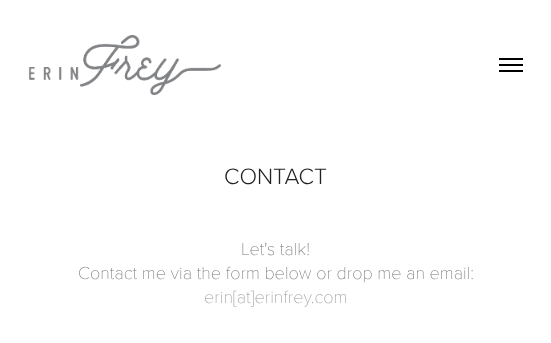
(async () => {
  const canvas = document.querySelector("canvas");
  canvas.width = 551;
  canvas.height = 343;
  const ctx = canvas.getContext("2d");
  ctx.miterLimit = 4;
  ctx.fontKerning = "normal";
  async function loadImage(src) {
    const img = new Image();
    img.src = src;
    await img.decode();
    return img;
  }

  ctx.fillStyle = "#ffffff";
  ctx.fillRect(0, 0, 551, 343);
  ctx.drawImage(await loadImage("img/1.png"), 28, 35, 193, 60);
  for (const [x, y, w, h, color] of [
    [499, 58, 24, 2, "#000000"],
    [499, 64, 24, 2, "#000000"],
    [499, 70, 24, 2, "#000000"],
  ]) {
    ctx.fillStyle = color;
    ctx.fillRect(x, y, w, h);
  }
  ctx.font = "300 23px Proxima Nova";
  ctx.fillStyle = "#222222";
  ctx.fillText("CONTACT", 224, 184);
  ctx.font = "100 18px Proxima Nova";
  ctx.fillStyle = "#777777";
  ctx.fillText("Let's talk!", 241, 255);
  ctx.fillText("Contact me via the form below or drop me an email:", 78, 279);
  ctx.fillStyle = "#999999";
  ctx.fillText("erin[at]erinfrey.com", 204, 303);
})();
